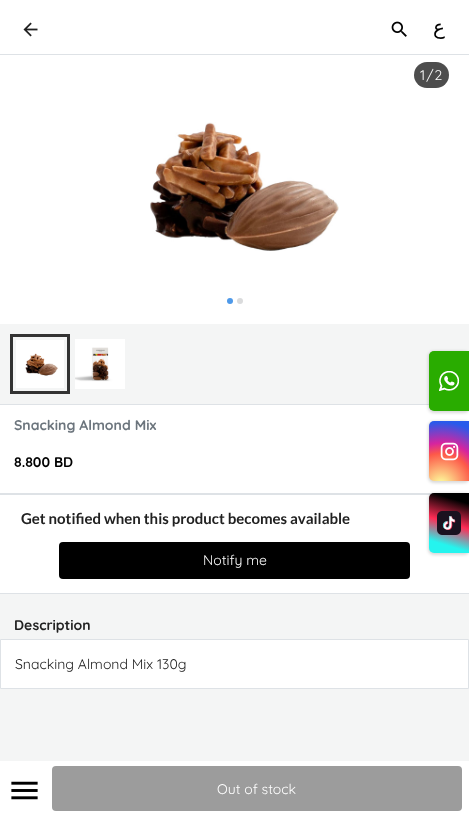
(async () => {
  const canvas = document.querySelector("canvas");
  canvas.width = 469;
  canvas.height = 821;
  const ctx = canvas.getContext("2d");
  ctx.miterLimit = 4;
  ctx.fontKerning = "normal";
  async function loadImage(src) {
    const img = new Image();
    img.src = src;
    await img.decode();
    return img;
  }
  let gradient;

  ctx.fillStyle = "#f4f5f5";
  ctx.fillRect(0, 0, 469, 821);
  ctx.fillStyle = "#ffffff";
  ctx.fillRect(0, 0, 469, 54);
  ctx.fillStyle = "#dee2e6";
  ctx.fillRect(0, 54, 469, 1);
  ctx.drawImage(await loadImage("img/1.png"), 23, 22, 15, 15);
  ctx.drawImage(await loadImage("img/2.png"), 391, 21, 16, 16);
  ctx.fillStyle = "#ffffff";
  ctx.fillRect(0, 55, 469, 269);
  ctx.drawImage(await loadImage("img/3.png"), 150, 122, 189, 129);
  ctx.fillStyle = "#4d4d4d";
  ctx.beginPath();
  ctx.roundRect(414, 62, 35, 26, 13);
  ctx.fill();
  ctx.fillStyle = "#4e99e9";
  ctx.beginPath();
  ctx.arc(230, 301, 3, 0, Math.PI * 2);
  ctx.fill();
  ctx.fillStyle = "#dadbdc";
  ctx.beginPath();
  ctx.arc(240, 301, 3, 0, Math.PI * 2);
  ctx.fill();
  ctx.strokeStyle = "#333333";
  ctx.lineWidth = 3;
  ctx.strokeRect(11.5, 335.5, 57, 57);
  ctx.drawImage(await loadImage("img/4.png"), 16, 340, 48, 48);
  ctx.drawImage(await loadImage("img/5.png"), 75, 339, 50, 50);
  for (const [x, y, w, h, color] of [
    [0, 405, 469, 88, "#ffffff"],
    [0, 404, 429, 1, "#dee2e6"],
    [0, 493, 434, 1, "#dee2e6"],
    [0, 495, 469, 98, "#ffffff"],
    [0, 494, 431, 1, "#dee2e6"],
    [0, 593, 469, 1, "#dee2e6"],
  ]) {
    ctx.fillStyle = color;
    ctx.fillRect(x, y, w, h);
  }
  ctx.fillStyle = "#000000";
  ctx.beginPath();
  ctx.roundRect(59, 542, 351, 37, 4);
  ctx.fill();
  ctx.fillStyle = "#ffffff";
  ctx.beginPath();
  ctx.rect(0.5, 639.5, 468, 49);
  ctx.fill();
  ctx.strokeStyle = "#dee2e6";
  ctx.lineWidth = 1;
  ctx.stroke();
  ctx.fillRect(0, 761, 469, 60);
  ctx.drawImage(await loadImage("img/6.png"), 11, 781, 27, 19);
  ctx.fillStyle = "#9c9c9c";
  ctx.beginPath();
  ctx.roundRect(52, 766, 410, 45, 4);
  ctx.fill();
  ctx.fillStyle = "rgba(0, 0, 0, 0.15)";
  ctx.filter = "blur(1.5px)";
  ctx.beginPath();
  ctx.roundRect(428, 351, 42, 62, 6);
  ctx.fill();
  ctx.filter = "none";
  ctx.fillStyle = "#29ac00";
  ctx.beginPath();
  ctx.roundRect(429, 351, 40, 60, [5, 0, 0, 5]);
  ctx.fill();
  ctx.drawImage(await loadImage("img/7.png"), 429, 352, 31, 58);
  ctx.fillStyle = "rgba(0, 0, 0, 0.15)";
  ctx.filter = "blur(1.5px)";
  ctx.beginPath();
  ctx.roundRect(428, 421, 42, 62, 6);
  ctx.fill();
  ctx.filter = "none";
  gradient = ctx.createRadialGradient(441, 485, 0, 441, 485, 70);
  gradient.addColorStop(0, "#fdf497");
  gradient.addColorStop(0.05, "#fdf497");
  gradient.addColorStop(0.45, "#fd5949");
  gradient.addColorStop(0.6, "#d6249f");
  gradient.addColorStop(0.9, "#285aeb");
  ctx.fillStyle = gradient;
  ctx.beginPath();
  ctx.roundRect(429, 421, 40, 60, [5, 0, 0, 5]);
  ctx.fill();
  ctx.drawImage(await loadImage("img/8.png"), 440, 442, 19, 19);
  ctx.fillStyle = "rgba(0, 0, 0, 0.15)";
  ctx.filter = "blur(1.5px)";
  ctx.beginPath();
  ctx.roundRect(428, 493, 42, 62, 6);
  ctx.fill();
  ctx.filter = "none";
  gradient = ctx.createLinearGradient(439, 556, 459, 490);
  gradient.addColorStop(0.18, "#25f4ee");
  gradient.addColorStop(0.5, "#fe2c55");
  gradient.addColorStop(0.85, "#000000");
  ctx.fillStyle = gradient;
  ctx.beginPath();
  ctx.roundRect(429, 493, 40, 60, [5, 0, 0, 5]);
  ctx.fill();
  ctx.drawImage(await loadImage("img/9.png"), 437, 511, 24, 24);
  ctx.direction = "rtl";
  ctx.font = "20px DejaVu Sans";
  ctx.fillStyle = "#000000";
  ctx.fillText("ع", 445, 34);
  ctx.letterSpacing = "1px";
  ctx.direction = "ltr";
  ctx.font = "300 14px 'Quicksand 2'";
  ctx.fillStyle = "#ffffff";
  ctx.fillText("1/2", 420, 80);
  ctx.letterSpacing = "0px";
  ctx.font = "300 14px Quicksand";
  ctx.fillStyle = "#6c757d";
  ctx.fillText("Snacking Almond Mix", 14, 430);
  ctx.fillStyle = "#000000";
  ctx.fillText("8.800 BD", 14, 467);
  ctx.font = "bold 15px Lato";
  ctx.fillStyle = "#212121";
  ctx.fillText("Get notified when this product becomes available", 21, 524);
  ctx.font = "300 14px 'Quicksand 2'";
  ctx.fillStyle = "#ffffff";
  ctx.fillText("Notify me", 203, 565);
  ctx.font = "300 14px Quicksand";
  ctx.fillStyle = "#212121";
  ctx.fillText("Description", 14, 630);
  ctx.font = "300 14px 'Quicksand 2'";
  ctx.fillText("Snacking Almond Mix 130g", 15, 669);
  ctx.fillStyle = "#ffffff";
  ctx.fillText("Out of stock", 217, 794);
})();
